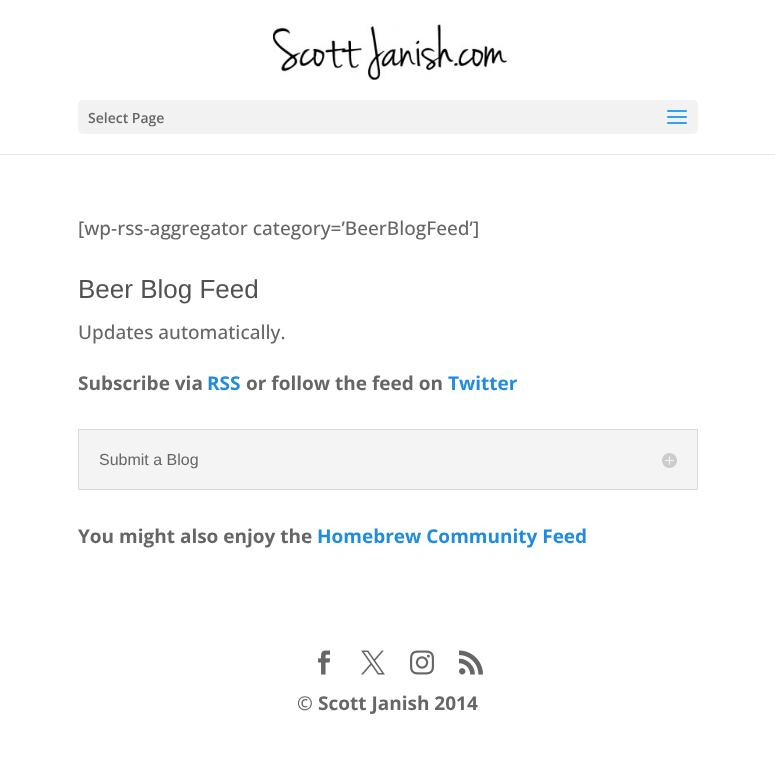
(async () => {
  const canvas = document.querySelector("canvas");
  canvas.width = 775;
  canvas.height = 775;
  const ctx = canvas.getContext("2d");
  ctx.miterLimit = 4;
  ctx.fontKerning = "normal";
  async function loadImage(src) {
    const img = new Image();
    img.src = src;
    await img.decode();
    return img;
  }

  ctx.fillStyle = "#ffffff";
  ctx.fillRect(0, 0, 775, 775);
  ctx.fillStyle = "#e6e6e6";
  ctx.fillRect(0, 154, 775, 1);
  ctx.drawImage(await loadImage("img/1.png"), 273, 22, 234, 58);
  ctx.fillStyle = "#f2f2f2";
  ctx.beginPath();
  ctx.roundRect(78, 100, 620, 34, 5);
  ctx.fill();
  ctx.drawImage(await loadImage("img/2.png"), 667, 110, 20, 14);
  ctx.fillStyle = "#f4f4f4";
  ctx.beginPath();
  ctx.rect(78.5, 429.5, 619, 60);
  ctx.fill();
  ctx.strokeStyle = "#d9d9d9";
  ctx.stroke();
  ctx.drawImage(await loadImage("img/3.png"), 662, 453, 15, 15);
  ctx.drawImage(await loadImage("img/4.png"), 318, 650, 12, 25);
  ctx.drawImage(await loadImage("img/5.png"), 361, 650, 24, 25);
  ctx.drawImage(await loadImage("img/6.png"), 410, 650, 24, 25);
  ctx.drawImage(await loadImage("img/7.png"), 459, 650, 24, 25);
  ctx.font = "600 14px Open Sans";
  ctx.fillStyle = "#666666";
  ctx.fillText("Select Page", 88, 123);
  ctx.font = "500 19px Open Sans";
  ctx.fillText("[wp-rss-aggregator category=’BeerBlogFeed’]", 78, 235);
  ctx.font = "26px Liberation Sans";
  ctx.fillStyle = "#515151";
  ctx.fillText("Beer Blog Feed", 78, 298);
  ctx.font = "500 19px Open Sans";
  ctx.fillStyle = "#666666";
  ctx.fillText("Updates automatically.", 78, 339);
  ctx.font = "bold 19px Open Sans";
  ctx.fillText("Subscribe via", 78, 390);
  ctx.fillStyle = "#218cdd";
  ctx.fillText("RSS", 207, 390);
  ctx.fillStyle = "#666666";
  ctx.fillText("or follow the feed on", 246, 390);
  ctx.fillStyle = "#218cdd";
  ctx.fillText("Twitter", 448, 390);
  ctx.font = "16px Liberation Sans";
  ctx.fillStyle = "#666666";
  ctx.fillText("Submit a Blog", 99, 465);
  ctx.font = "bold 19px Open Sans";
  ctx.fillText("You might also enjoy the", 78, 543);
  ctx.fillStyle = "#218cdd";
  ctx.fillText("Homebrew Community Feed", 317, 543);
  ctx.font = "500 19px Open Sans";
  ctx.fillStyle = "#666666";
  ctx.fillText("©", 297, 710);
  ctx.font = "bold 19px Open Sans";
  ctx.fillText("Scott Janish 2014", 318, 710);
})();
